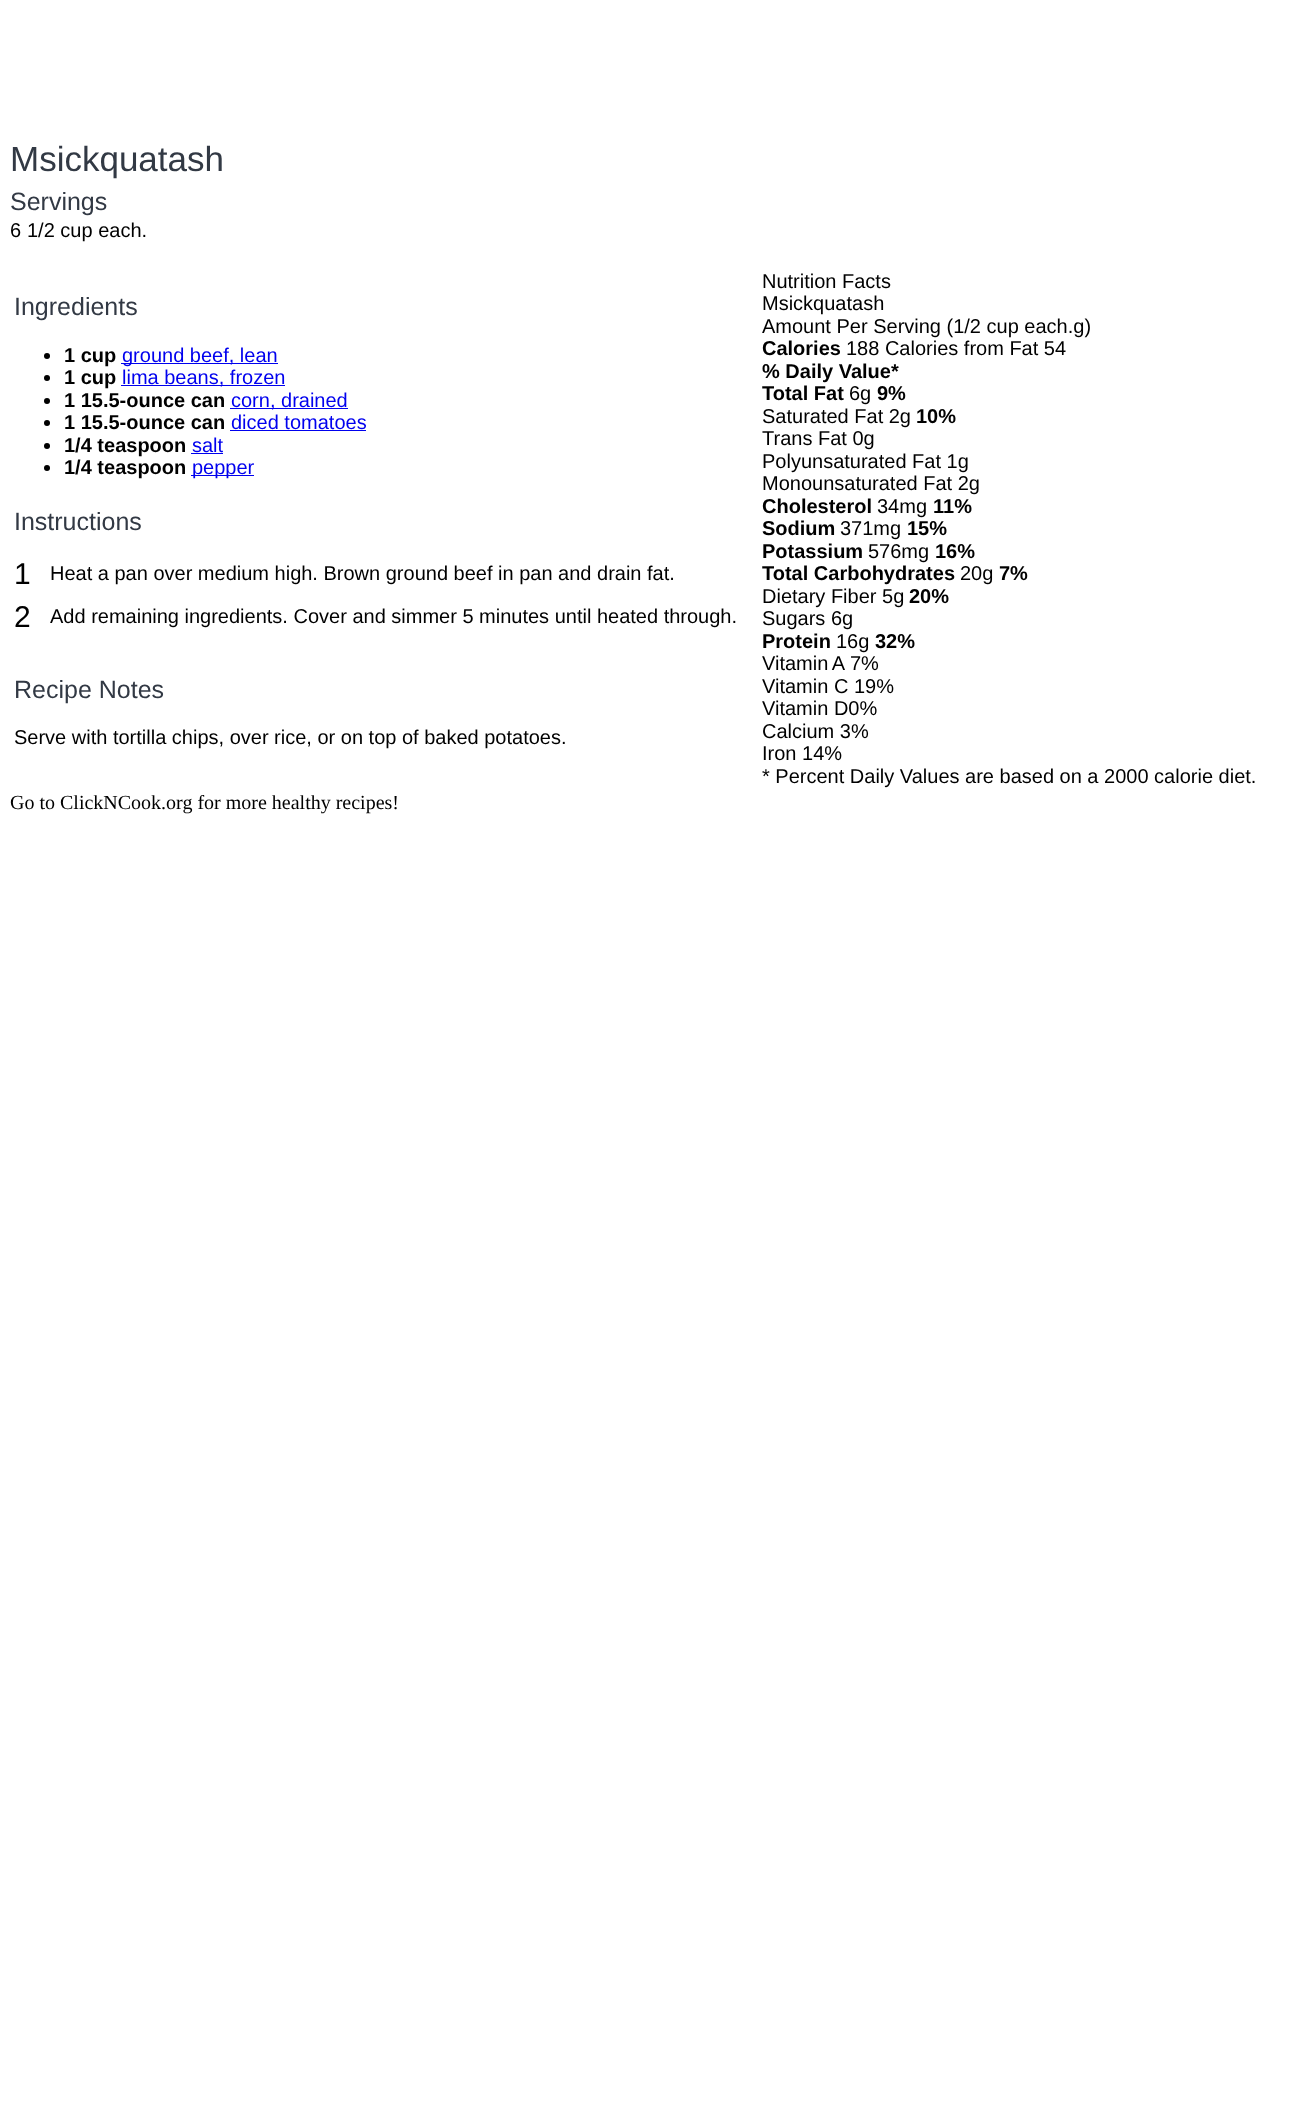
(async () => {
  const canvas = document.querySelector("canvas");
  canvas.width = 1303;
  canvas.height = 2116;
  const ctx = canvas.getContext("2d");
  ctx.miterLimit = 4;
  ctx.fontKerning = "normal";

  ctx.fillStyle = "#ffffff";
  ctx.fillRect(0, 0, 1303, 2116);
  ctx.fillStyle = "#000000";
  ctx.beginPath();
  ctx.arc(47, 356, 3, 0, Math.PI * 2);
  ctx.fill();
  ctx.fillStyle = "#0000ee";
  ctx.fillRect(121, 363, 157, 1);
  ctx.fillStyle = "#000000";
  ctx.beginPath();
  ctx.arc(47, 378, 3, 0, Math.PI * 2);
  ctx.fill();
  ctx.fillStyle = "#0000ee";
  ctx.fillRect(121, 385, 164, 1);
  ctx.fillStyle = "#000000";
  ctx.beginPath();
  ctx.arc(47, 401, 3, 0, Math.PI * 2);
  ctx.fill();
  ctx.fillStyle = "#0000ee";
  ctx.fillRect(230, 408, 118, 1);
  ctx.fillStyle = "#000000";
  ctx.beginPath();
  ctx.arc(47, 423, 3, 0, Math.PI * 2);
  ctx.fill();
  ctx.fillStyle = "#0000ee";
  ctx.fillRect(230, 430, 136, 1);
  ctx.fillStyle = "#000000";
  ctx.beginPath();
  ctx.arc(47, 446, 3, 0, Math.PI * 2);
  ctx.fill();
  ctx.fillStyle = "#0000ee";
  ctx.fillRect(191, 453, 32, 1);
  ctx.fillStyle = "#000000";
  ctx.beginPath();
  ctx.arc(47, 468, 3, 0, Math.PI * 2);
  ctx.fill();
  ctx.fillStyle = "#0000ee";
  ctx.fillRect(191, 475, 63, 1);
  ctx.font = "35px Liberation Sans";
  ctx.fillStyle = "#323944";
  ctx.fillText("Msickquatash", 10, 171);
  ctx.font = "25px Liberation Sans";
  ctx.fillText("Servings", 10, 210);
  ctx.font = "20px Liberation Sans";
  ctx.fillStyle = "#000000";
  ctx.fillText("6", 10, 237);
  ctx.fillText("1/2 cup each.", 27, 237);
  ctx.font = "25px Liberation Sans";
  ctx.fillStyle = "#323944";
  ctx.fillText("Ingredients", 14, 315);
  ctx.font = "bold 20px Liberation Sans";
  ctx.fillStyle = "#000000";
  ctx.fillText("1 cup", 64, 362);
  ctx.font = "20px Liberation Sans";
  ctx.fillStyle = "#0000ee";
  ctx.fillText("ground beef, lean", 122, 362);
  ctx.font = "bold 20px Liberation Sans";
  ctx.fillStyle = "#000000";
  ctx.fillText("1 cup", 64, 384);
  ctx.font = "20px Liberation Sans";
  ctx.fillStyle = "#0000ee";
  ctx.fillText("lima beans, frozen", 122, 384);
  ctx.font = "bold 20px Liberation Sans";
  ctx.fillStyle = "#000000";
  ctx.fillText("1 15.5-ounce can", 64, 407);
  ctx.font = "20px Liberation Sans";
  ctx.fillStyle = "#0000ee";
  ctx.fillText("corn, drained", 231, 407);
  ctx.font = "bold 20px Liberation Sans";
  ctx.fillStyle = "#000000";
  ctx.fillText("1 15.5-ounce can", 64, 429);
  ctx.font = "20px Liberation Sans";
  ctx.fillStyle = "#0000ee";
  ctx.fillText("diced tomatoes", 231, 429);
  ctx.font = "bold 20px Liberation Sans";
  ctx.fillStyle = "#000000";
  ctx.fillText("1/4 teaspoon", 64, 452);
  ctx.font = "20px Liberation Sans";
  ctx.fillStyle = "#0000ee";
  ctx.fillText("salt", 192, 452);
  ctx.font = "bold 20px Liberation Sans";
  ctx.fillStyle = "#000000";
  ctx.fillText("1/4 teaspoon", 64, 474);
  ctx.font = "20px Liberation Sans";
  ctx.fillStyle = "#0000ee";
  ctx.fillText("pepper", 192, 474);
  ctx.font = "25px Liberation Sans";
  ctx.fillStyle = "#323944";
  ctx.fillText("Instructions", 14, 530);
  ctx.font = "30px Liberation Sans";
  ctx.fillStyle = "#000000";
  ctx.fillText("1", 14, 584);
  ctx.font = "20px Liberation Sans";
  ctx.fillText("Heat a pan over medium high. Brown ground beef in pan and drain fat.", 50, 580);
  ctx.font = "30px Liberation Sans";
  ctx.fillText("2", 14, 627);
  ctx.font = "20px Liberation Sans";
  ctx.fillText("Add remaining ingredients. Cover and simmer 5 minutes until heated through.", 50, 623);
  ctx.font = "25px Liberation Sans";
  ctx.fillStyle = "#323944";
  ctx.fillText("Recipe Notes", 14, 698);
  ctx.font = "20px Liberation Sans";
  ctx.fillStyle = "#000000";
  for (const [text, x, y] of [
    ["Serve with tortilla chips, over rice, or on top of baked potatoes.", 14, 744],
    ["Nutrition Facts", 762, 288],
    ["Msickquatash", 762, 310],
    ["Amount Per Serving (1/2 cup each.g)", 762, 333],
  ]) {
    ctx.fillText(text, x, y);
  }
  ctx.font = "bold 20px Liberation Sans";
  ctx.fillText("Calories", 762, 355);
  ctx.font = "20px Liberation Sans";
  ctx.fillText("188 Calories from Fat 54", 846, 355);
  ctx.font = "bold 20px Liberation Sans";
  ctx.fillText("% Daily Value*", 762, 378);
  ctx.fillText("Total Fat", 762, 400);
  ctx.font = "20px Liberation Sans";
  ctx.fillText("6g", 849, 400);
  ctx.font = "bold 20px Liberation Sans";
  ctx.fillText("9%", 877, 400);
  ctx.font = "20px Liberation Sans";
  ctx.fillText("Saturated Fat 2g", 762, 423);
  ctx.font = "bold 20px Liberation Sans";
  ctx.fillText("10%", 916, 423);
  ctx.font = "20px Liberation Sans";
  for (const [text, x, y] of [
    ["Trans Fat 0g", 762, 445],
    ["Polyunsaturated Fat 1g", 762, 468],
    ["Monounsaturated Fat 2g", 762, 490],
  ]) {
    ctx.fillText(text, x, y);
  }
  ctx.font = "bold 20px Liberation Sans";
  ctx.fillText("Cholesterol", 762, 513);
  ctx.font = "20px Liberation Sans";
  ctx.fillText("34mg", 877, 513);
  ctx.font = "bold 20px Liberation Sans";
  ctx.fillText("11%", 933, 513);
  ctx.fillText("Sodium", 762, 535);
  ctx.font = "20px Liberation Sans";
  ctx.fillText("371mg", 840, 535);
  ctx.font = "bold 20px Liberation Sans";
  ctx.fillText("15%", 907, 535);
  ctx.fillText("Potassium", 762, 558);
  ctx.font = "20px Liberation Sans";
  ctx.fillText("576mg", 868, 558);
  ctx.font = "bold 20px Liberation Sans";
  ctx.fillText("16%", 935, 558);
  ctx.fillText("Total Carbohydrates", 762, 580);
  ctx.font = "20px Liberation Sans";
  ctx.fillText("20g", 960, 580);
  ctx.font = "bold 20px Liberation Sans";
  ctx.fillText("7%", 999, 580);
  ctx.font = "20px Liberation Sans";
  ctx.fillText("Dietary Fiber 5g", 762, 603);
  ctx.font = "bold 20px Liberation Sans";
  ctx.fillText("20%", 909, 603);
  ctx.font = "20px Liberation Sans";
  ctx.fillText("Sugars 6g", 762, 625);
  ctx.font = "bold 20px Liberation Sans";
  ctx.fillText("Protein", 762, 648);
  ctx.font = "20px Liberation Sans";
  ctx.fillText("16g", 836, 648);
  ctx.font = "bold 20px Liberation Sans";
  ctx.fillText("32%", 875, 648);
  ctx.wordSpacing = "-1px";
  ctx.font = "20px Liberation Sans";
  ctx.fillText("Vitamin A", 762, 670);
  ctx.wordSpacing = "0px";
  for (const [text, x, y] of [
    ["7%", 850, 670],
    ["Vitamin C 19%", 762, 693],
    ["Vitamin D0%", 762, 715],
    ["Calcium 3%", 762, 738],
    ["Iron 14%", 762, 760],
    ["* Percent Daily Values are based on a 2000 calorie diet.", 762, 783],
  ]) {
    ctx.fillText(text, x, y);
  }
  ctx.font = "20px Liberation Serif";
  ctx.fillText("Go to ClickNCook.org for more healthy recipes!", 10, 809);
})();
